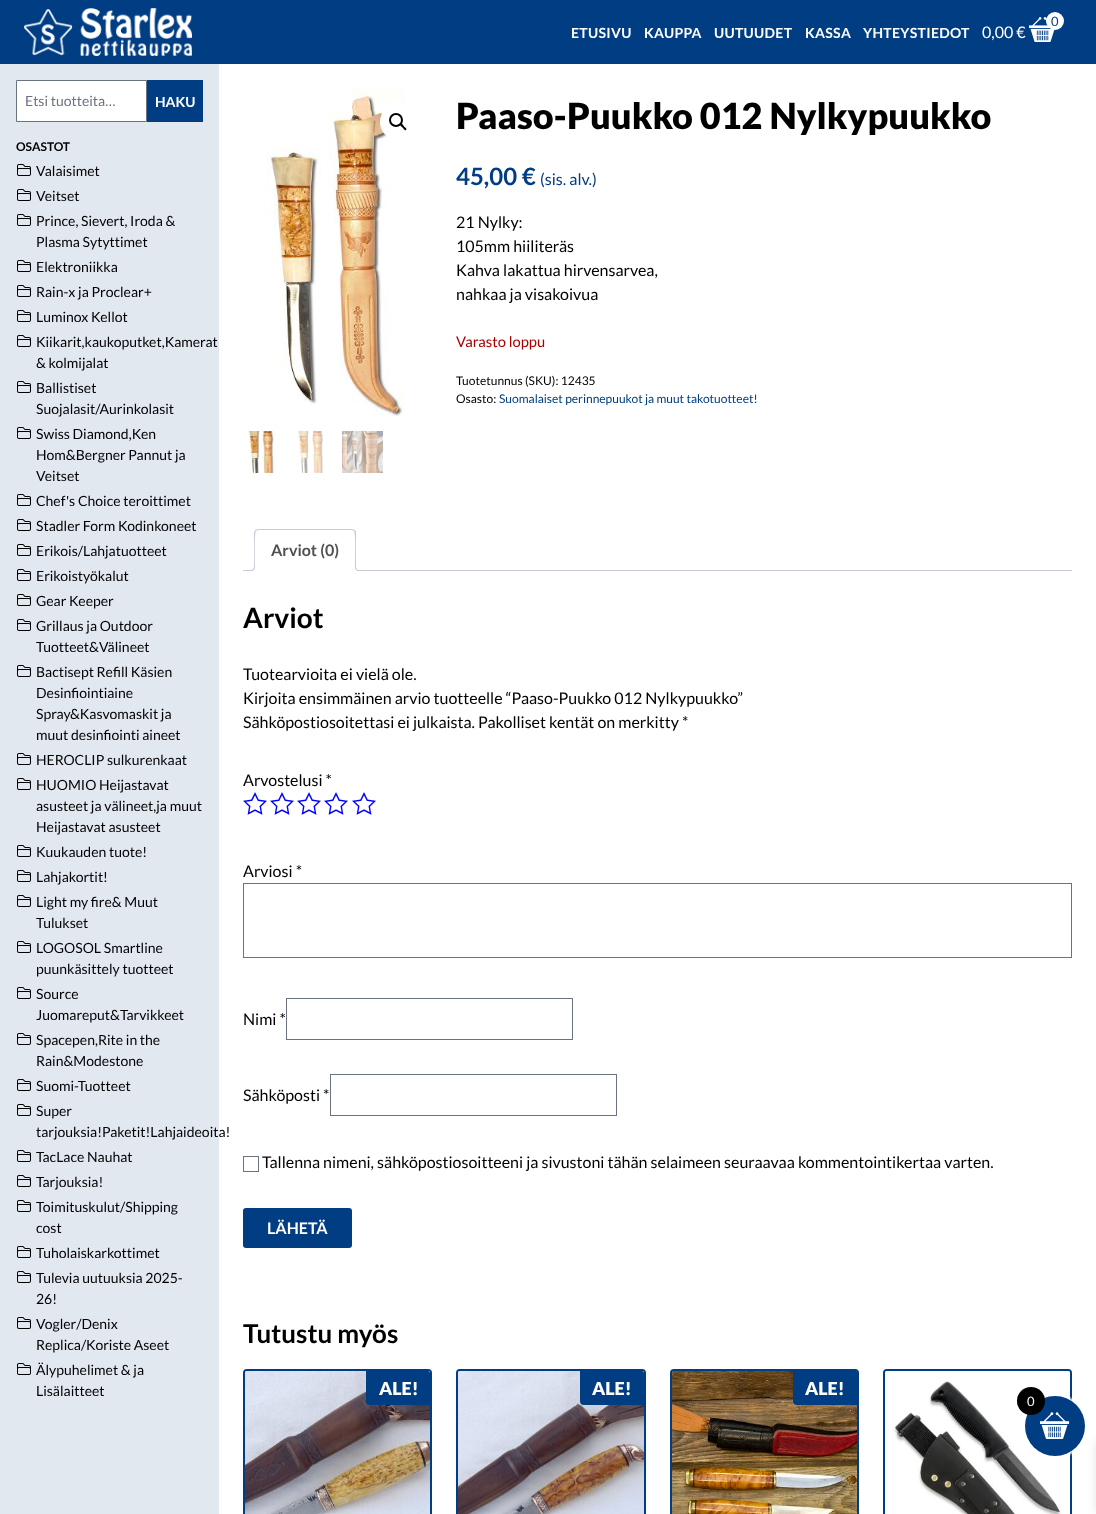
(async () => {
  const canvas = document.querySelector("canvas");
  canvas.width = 1096;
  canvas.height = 1514;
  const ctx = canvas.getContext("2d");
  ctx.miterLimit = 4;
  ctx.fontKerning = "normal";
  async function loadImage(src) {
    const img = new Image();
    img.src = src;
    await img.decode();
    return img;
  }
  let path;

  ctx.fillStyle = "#ffffff";
  ctx.fillRect(0, 0, 1096, 1514);
  ctx.fillStyle = "#003d82";
  ctx.fillRect(0, 0, 1096, 64);
  ctx.drawImage(await loadImage("img/1.png"), 24, 8, 168, 48);
  ctx.drawImage(await loadImage("img/2.png"), 1029, 17, 26, 25);
  ctx.fillStyle = "#ffffff";
  ctx.beginPath();
  ctx.arc(1055, 21, 9, 0, Math.PI * 2);
  ctx.fill();
  ctx.fillStyle = "#e2e8f0";
  ctx.fillRect(0, 64, 219, 1450);
  ctx.fillStyle = "#ffffff";
  ctx.beginPath();
  ctx.rect(16.5, 80.5, 130, 41);
  ctx.fill();
  ctx.strokeStyle = "#6b7280";
  ctx.stroke();
  ctx.fillStyle = "#003d82";
  ctx.fillRect(147, 80, 56, 42);
  ctx.drawImage(await loadImage("img/3.png"), 17, 164, 14, 12);
  ctx.drawImage(await loadImage("img/3.png"), 17, 189, 14, 12);
  ctx.drawImage(await loadImage("img/3.png"), 17, 214, 14, 12);
  ctx.drawImage(await loadImage("img/3.png"), 17, 260, 14, 12);
  ctx.drawImage(await loadImage("img/3.png"), 17, 285, 14, 12);
  ctx.drawImage(await loadImage("img/3.png"), 17, 310, 14, 12);
  ctx.drawImage(await loadImage("img/3.png"), 17, 335, 14, 12);
  ctx.drawImage(await loadImage("img/3.png"), 17, 381, 14, 12);
  ctx.drawImage(await loadImage("img/3.png"), 17, 427, 14, 12);
  ctx.drawImage(await loadImage("img/3.png"), 17, 494, 14, 12);
  ctx.drawImage(await loadImage("img/3.png"), 17, 519, 14, 12);
  ctx.drawImage(await loadImage("img/3.png"), 17, 544, 14, 12);
  ctx.drawImage(await loadImage("img/3.png"), 17, 569, 14, 12);
  ctx.drawImage(await loadImage("img/3.png"), 17, 594, 14, 12);
  ctx.drawImage(await loadImage("img/3.png"), 17, 619, 14, 12);
  ctx.drawImage(await loadImage("img/3.png"), 17, 665, 14, 12);
  ctx.drawImage(await loadImage("img/3.png"), 17, 753, 14, 12);
  ctx.drawImage(await loadImage("img/3.png"), 17, 778, 14, 12);
  ctx.drawImage(await loadImage("img/3.png"), 17, 845, 14, 12);
  ctx.drawImage(await loadImage("img/3.png"), 17, 870, 14, 12);
  ctx.drawImage(await loadImage("img/3.png"), 17, 895, 14, 12);
  ctx.drawImage(await loadImage("img/3.png"), 17, 941, 14, 12);
  ctx.drawImage(await loadImage("img/3.png"), 17, 987, 14, 12);
  ctx.drawImage(await loadImage("img/3.png"), 17, 1033, 14, 12);
  ctx.drawImage(await loadImage("img/3.png"), 17, 1079, 14, 12);
  ctx.drawImage(await loadImage("img/3.png"), 17, 1104, 14, 12);
  ctx.drawImage(await loadImage("img/3.png"), 17, 1150, 14, 12);
  ctx.drawImage(await loadImage("img/3.png"), 17, 1175, 14, 12);
  ctx.drawImage(await loadImage("img/3.png"), 17, 1200, 14, 12);
  ctx.drawImage(await loadImage("img/3.png"), 17, 1246, 14, 12);
  ctx.drawImage(await loadImage("img/3.png"), 17, 1271, 14, 12);
  ctx.drawImage(await loadImage("img/3.png"), 17, 1317, 14, 12);
  ctx.drawImage(await loadImage("img/3.png"), 17, 1363, 14, 12);
  ctx.drawImage(await loadImage("img/4.png"), 267, 88, 138, 328);
  ctx.fillStyle = "#ffffff";
  ctx.beginPath();
  ctx.arc(398, 122, 18, 0, Math.PI * 2);
  ctx.fill();
  ctx.beginPath();
  ctx.arc(396, 120, 6, 0, Math.PI * 2);
  ctx.strokeStyle = "#000000";
  ctx.lineWidth = 2;
  ctx.stroke();
  ctx.fillStyle = "#000000";
  path = new Path2D("M400.5 124C402 123 403.5 125.5 404 126.5C404.5 127 407.5 128.5 406 130C405 131 403.5 128.5 402.5 127.5C402 127 399.5 125.5 400.5 124Z");
  ctx.fill(path);
  ctx.drawImage(await loadImage("img/5.png"), 248, 431, 28, 42);
  ctx.drawImage(await loadImage("img/6.png"), 298, 431, 25, 42);
  ctx.drawImage(await loadImage("img/7.png"), 342, 431, 41, 42);
  ctx.fillStyle = "#cfc8d8";
  ctx.fillRect(243, 570, 829, 1);
  ctx.fillStyle = "#ffffff";
  ctx.beginPath();
  ctx.roundRect(254, 529, 102, 42, [4, 4, 0, 0]);
  ctx.fill();
  ctx.fillStyle = "#cfc8d8";
  path = new Path2D("M258 529L255 530L256 531L258 530H352L354 531L355 530L352 529Z");
  ctx.fill(path);
  path = new Path2D("M356 571V533C356 532 356 531 355 530L354 531C356 533 355 565 355 570Z");
  ctx.fill(path);
  ctx.fillStyle = "#ffffff";
  path = new Path2D("M356 571L355 570H255L254 571Z");
  ctx.fill(path);
  ctx.fillStyle = "#cfc8d8";
  path = new Path2D("M254 571L255 570C255 565 254 533 256 531L255 530L254 533Z");
  ctx.fill(path);
  ctx.save();
  ctx.beginPath();
  ctx.rect(243, 529, 829, 42);
  ctx.clip();
  ctx.fillStyle = "#ffffff";
  path = new Path2D("M252 571V573C255.5 573 257 571.5 257 568H255C254.5 569.5 253.5 570.5 252 571Z");
  ctx.fill(path);
  ctx.restore();
  path = new Path2D("M250 566H255C255 569.5 253.5 571 250 571ZM250 566H254C254 569 253 570 250 570Z");
  ctx.fill(path, "evenodd");
  ctx.save();
  ctx.beginPath();
  ctx.rect(243, 529, 829, 42);
  ctx.clip();
  ctx.fillStyle = "#ffffff";
  path = new Path2D("M353 568C353 571.5 354.5 573 358 573V571C356.5 570.5 355.5 569.5 355 568Z");
  ctx.fill(path);
  ctx.restore();
  path = new Path2D("M355 566H360V571C357.5 571 355 570 355 567ZM356 566H360V570C358 570 356 569.5 356 567Z");
  ctx.fill(path, "evenodd");
  ctx.drawImage(await loadImage("img/8.png"), 243, 792, 24, 23);
  ctx.drawImage(await loadImage("img/8.png"), 270, 792, 24, 23);
  ctx.drawImage(await loadImage("img/8.png"), 297, 792, 24, 23);
  ctx.drawImage(await loadImage("img/8.png"), 324, 792, 24, 23);
  ctx.drawImage(await loadImage("img/8.png"), 352, 792, 24, 23);
  ctx.strokeStyle = "#6b7280";
  ctx.lineWidth = 1;
  ctx.strokeRect(243.5, 883.5, 828, 74);
  ctx.strokeRect(286.5, 998.5, 286, 41);
  ctx.strokeRect(330.5, 1074.5, 286, 41);
  ctx.strokeRect(243.5, 1156.5, 15, 15);
  ctx.fillStyle = "#003d82";
  ctx.beginPath();
  ctx.roundRect(243, 1208, 109, 40, 3);
  ctx.fill();
  ctx.beginPath();
  ctx.roundRect(244, 1370, 187, 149, 3);
  ctx.strokeStyle = "#003d82";
  ctx.lineWidth = 2;
  ctx.stroke();
  ctx.drawImage(await loadImage("img/9.png"), 245, 1371, 185, 143);
  ctx.beginPath();
  ctx.roundRect(366, 1371, 64, 34, [0, 2, 0, 4]);
  ctx.fill();
  ctx.beginPath();
  ctx.roundRect(457, 1370, 188, 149, 3);
  ctx.stroke();
  ctx.drawImage(await loadImage("img/10.png"), 458, 1371, 186, 143);
  ctx.beginPath();
  ctx.roundRect(580, 1371, 64, 34, [0, 2, 0, 4]);
  ctx.fill();
  ctx.beginPath();
  ctx.roundRect(671, 1370, 187, 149, 3);
  ctx.stroke();
  ctx.drawImage(await loadImage("img/11.png"), 672, 1371, 185, 143);
  ctx.beginPath();
  ctx.roundRect(793, 1371, 64, 34, [0, 2, 0, 4]);
  ctx.fill();
  ctx.beginPath();
  ctx.roundRect(884, 1370, 187, 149, 3);
  ctx.stroke();
  ctx.drawImage(await loadImage("img/12.png"), 885, 1371, 185, 143);
  ctx.fillStyle = "#ffffff";
  ctx.filter = "blur(1px)";
  ctx.beginPath();
  ctx.roundRect(1023, 1394, 64, 64, 32);
  ctx.fill();
  ctx.filter = "none";
  ctx.fillStyle = "rgba(0, 0, 0, 0.1)";
  ctx.filter = "blur(5px)";
  ctx.beginPath();
  ctx.rect(1096, 1442, 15, 71);
  ctx.fill();
  ctx.filter = "none";
  ctx.fillStyle = "#003d82";
  ctx.beginPath();
  ctx.arc(1055, 1426, 30, 0, Math.PI * 2);
  ctx.fill();
  ctx.drawImage(await loadImage("img/13.png"), 1040, 1412, 30, 27);
  ctx.fillStyle = "#000000";
  ctx.beginPath();
  ctx.arc(1031, 1401, 14, 0, Math.PI * 2);
  ctx.fill();
  ctx.letterSpacing = "0.3px";
  ctx.font = "bold 14px Lato";
  ctx.fillStyle = "#ffffff";
  for (const [text, x, y] of [
    ["ETUSIVU", 571, 38],
    ["KAUPPA", 644, 38],
    ["UUTUUDET", 714, 38],
    ["KASSA", 805, 38],
    ["YHTEYSTIEDOT", 863, 38],
  ]) {
    ctx.fillText(text, x, y);
  }
  ctx.letterSpacing = "0px";
  ctx.font = "13px Lato";
  ctx.fillStyle = "#003d82";
  ctx.fillText("0", 1051, 26);
  ctx.font = "16px Lato";
  ctx.fillStyle = "#ffffff";
  ctx.fillText("0,00 €", 982, 38);
  ctx.font = "14px Lato";
  ctx.fillStyle = "#6b7280";
  ctx.fillText("Etsi tuotteita…", 25, 106);
  ctx.font = "bold 14px Lato";
  ctx.fillStyle = "#ffffff";
  ctx.fillText("HAKU", 155, 107);
  ctx.font = "bold 12px Lato";
  ctx.fillStyle = "#000000";
  ctx.fillText("OSASTOT", 16, 151);
  ctx.font = "14px Lato";
  for (const [text, x, y] of [
    ["Valaisimet", 36, 176],
    ["Veitset", 36, 201],
    ["Prince, Sievert, Iroda &", 36, 226],
    ["Plasma Sytyttimet", 36, 247],
    ["Elektroniikka", 36, 272],
    ["Rain-x ja Proclear+", 36, 297],
    ["Luminox Kellot", 36, 322],
    ["Kiikarit,kaukoputket,Kamerat", 36, 347],
    ["& kolmijalat", 36, 368],
    ["Ballistiset", 36, 393],
    ["Suojalasit/Aurinkolasit", 36, 414],
    ["Swiss Diamond,Ken", 36, 439],
    ["Hom&Bergner Pannut ja", 36, 460],
    ["Veitset", 36, 481],
    ["Chef's Choice teroittimet", 36, 506],
    ["Stadler Form Kodinkoneet", 36, 531],
    ["Erikois/Lahjatuotteet", 36, 556],
    ["Erikoistyökalut", 36, 581],
    ["Gear Keeper", 36, 606],
    ["Grillaus ja Outdoor", 36, 631],
    ["Tuotteet&Välineet", 36, 652],
    ["Bactisept Refill Käsien", 36, 677],
    ["Desinfiointiaine", 36, 698],
    ["Spray&Kasvomaskit ja", 36, 719],
    ["muut desinfiointi aineet", 36, 740],
    ["HEROCLIP sulkurenkaat", 36, 765],
    ["HUOMIO Heijastavat", 36, 790],
    ["asusteet ja välineet,ja muut", 36, 811],
    ["Heijastavat asusteet", 36, 832],
    ["Kuukauden tuote!", 36, 857],
    ["Lahjakortit!", 36, 882],
    ["Light my fire& Muut", 36, 907],
    ["Tulukset", 36, 928],
    ["LOGOSOL Smartline", 36, 953],
    ["puunkäsittely tuotteet", 36, 974],
    ["Source", 36, 999],
    ["Juomareput&Tarvikkeet", 36, 1020],
    ["Spacepen,Rite in the", 36, 1045],
    ["Rain&Modestone", 36, 1066],
    ["Suomi-Tuotteet", 36, 1091],
    ["Super", 36, 1116],
    ["tarjouksia!Paketit!Lahjaideoita!", 36, 1137],
    ["TacLace Nauhat", 36, 1162],
    ["Tarjouksia!", 36, 1187],
    ["Toimituskulut/Shipping", 36, 1212],
    ["cost", 36, 1233],
    ["Tuholaiskarkottimet", 36, 1258],
    ["Tulevia uutuuksia 2025-", 36, 1283],
    ["26!", 36, 1304],
    ["Vogler/Denix", 36, 1329],
    ["Replica/Koriste Aseet", 36, 1350],
    ["Älypuhelimet & ja", 36, 1375],
    ["Lisälaitteet", 36, 1396],
  ]) {
    ctx.fillText(text, x, y);
  }
  ctx.font = "900 36px Lato";
  ctx.fillText("Paaso-Puukko 012 Nylkypuukko", 456, 129);
  ctx.font = "bold 24px Lato";
  ctx.fillStyle = "#003d82";
  ctx.fillText("45,00 €", 456, 185);
  ctx.font = "16px Lato";
  ctx.fillText("(sis. alv.)", 540, 185);
  ctx.fillStyle = "#000000";
  for (const [text, x, y] of [
    ["21 Nylky:", 456, 228],
    ["105mm hiiliteräs", 456, 252],
    ["Kahva lakattua hirvensarvea,", 456, 276],
    ["nahkaa ja visakoivua", 456, 300],
  ]) {
    ctx.fillText(text, x, y);
  }
  ctx.font = "14.75px Lato";
  ctx.fillStyle = "#aa0000";
  ctx.fillText("Varasto loppu", 456, 347);
  ctx.font = "12px Lato";
  ctx.fillStyle = "#000000";
  ctx.fillText("Tuotetunnus (SKU): 12435", 456, 385);
  ctx.fillText("Osasto:", 456, 403);
  ctx.fillStyle = "#003d82";
  ctx.fillText("Suomalaiset perinnepuukot ja muut takotuotteet!", 499, 403);
  ctx.font = "bold 16px Lato";
  ctx.fillStyle = "#515151";
  ctx.fillText("Arviot (0)", 271, 556);
  ctx.font = "bold 28px Lato";
  ctx.fillStyle = "#000000";
  ctx.fillText("Arviot", 243, 628);
  ctx.font = "16px Lato";
  for (const [text, x, y] of [
    ["Tuotearvioita ei vielä ole.", 243, 680],
    ["Kirjoita ensimmäinen arvio tuotteelle “Paaso-Puukko 012 Nylkypuukko”", 243, 704],
    ["Sähköpostiosoitettasi ei julkaista. Pakolliset kentät on merkitty *", 243, 728],
    ["Arvostelusi *", 243, 786],
    ["Arviosi *", 243, 877],
    ["Nimi *", 243, 1025],
    ["Sähköposti *", 243, 1101],
    ["Tallenna nimeni, sähköpostiosoitteeni ja sivustoni tähän selaimeen seuraavaa kommentointikertaa varten.", 262, 1168],
  ]) {
    ctx.fillText(text, x, y);
  }
  ctx.font = "bold 16px Lato";
  ctx.fillStyle = "#ffffff";
  ctx.fillText("LÄHETÄ", 267, 1234);
  ctx.font = "bold 26px Lato";
  ctx.fillStyle = "#000000";
  ctx.fillText("Tutustu myös", 243, 1343);
  ctx.font = "900 18px Lato";
  ctx.fillStyle = "#ffffff";
  for (const [text, x, y] of [
    ["ALE!", 379, 1395],
    ["ALE!", 592, 1395],
    ["ALE!", 805, 1395],
  ]) {
    ctx.fillText(text, x, y);
  }
  ctx.font = "13px Lato";
  ctx.fillText("0", 1027, 1406);
})();
